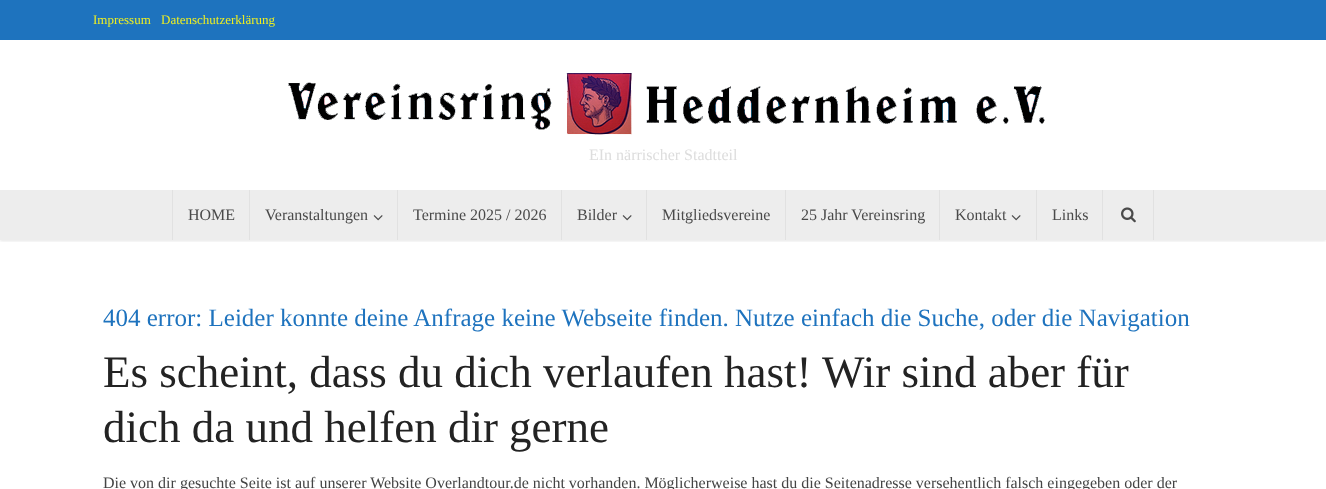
(async () => {
  const canvas = document.querySelector("canvas");
  canvas.width = 1326;
  canvas.height = 489;
  const ctx = canvas.getContext("2d");
  ctx.miterLimit = 4;
  ctx.fontKerning = "normal";
  async function loadImage(src) {
    const img = new Image();
    img.src = src;
    await img.decode();
    return img;
  }

  ctx.fillStyle = "#ffffff";
  ctx.fillRect(0, 0, 1326, 489);
  ctx.save();
  ctx.beginPath();
  ctx.rect(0, 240, 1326, 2);
  ctx.clip();
  ctx.fillStyle = "rgba(0, 0, 0, 0.1)";
  ctx.filter = "blur(1.5px)";
  ctx.beginPath();
  ctx.rect(0, 1, 1326, 240);
  ctx.fill();
  ctx.filter = "none";
  ctx.restore();
  ctx.fillStyle = "#1e73be";
  ctx.fillRect(0, 0, 1326, 40);
  ctx.drawImage(await loadImage("img/1.png"), 288, 73, 757, 62);
  for (const [x, y, w, h, color] of [
    [0, 190, 1326, 50, "#ededed"],
    [172, 190, 1, 50, "#e1e1e1"],
    [249, 190, 1, 50, "#e1e1e1"],
  ]) {
    ctx.fillStyle = color;
    ctx.fillRect(x, y, w, h);
  }
  ctx.drawImage(await loadImage("img/2.png"), 373, 215, 10, 6);
  ctx.fillRect(397, 190, 1, 50);
  ctx.fillRect(561, 190, 1, 50);
  ctx.drawImage(await loadImage("img/2.png"), 622, 215, 10, 6);
  for (const [x, y, w, h, color] of [
    [646, 190, 1, 50, "#e1e1e1"],
    [785, 190, 1, 50, "#e1e1e1"],
    [939, 190, 1, 50, "#e1e1e1"],
  ]) {
    ctx.fillStyle = color;
    ctx.fillRect(x, y, w, h);
  }
  ctx.drawImage(await loadImage("img/2.png"), 1011, 215, 10, 6);
  for (const [x, y, w, h, color] of [
    [1036, 190, 1, 50, "#e1e1e1"],
    [1153, 190, 1, 50, "#e1e1e1"],
    [1102, 190, 1, 50, "#e1e1e1"],
  ]) {
    ctx.fillStyle = color;
    ctx.fillRect(x, y, w, h);
  }
  ctx.drawImage(await loadImage("img/3.png"), 1121, 207, 15, 16);
  ctx.font = "13px Liberation Serif";
  ctx.fillStyle = "#eeee22";
  ctx.fillText("Impressum", 93, 24);
  ctx.fillText("Datenschutzerklärung", 161, 24);
  ctx.font = "16px Liberation Serif";
  ctx.fillStyle = "#dddddd";
  ctx.fillText("EIn närrischer Stadtteil", 589, 160);
  ctx.fillStyle = "#4a4a4a";
  for (const [text, x, y] of [
    ["HOME", 188, 220],
    ["Veranstaltungen", 265, 220],
    ["Termine 2025 / 2026", 413, 220],
    ["Bilder", 577, 220],
    ["Mitgliedsvereine", 662, 220],
    ["25 Jahr Vereinsring", 801, 220],
    ["Kontakt", 955, 220],
    ["Links", 1052, 220],
  ]) {
    ctx.fillText(text, x, y);
  }
  ctx.font = "25px Liberation Serif";
  ctx.fillStyle = "#1e73be";
  ctx.fillText("404 error: Leider konnte deine Anfrage keine Webseite finden. Nutze einfach die Suche, oder die Navigation", 103, 326);
  ctx.font = "45px Liberation Serif";
  ctx.fillStyle = "#232323";
  ctx.fillText("Es scheint, dass du dich verlaufen hast! Wir sind aber für", 103, 387);
  ctx.fillText("dich da und helfen dir gerne", 103, 442);
  ctx.font = "16px Liberation Serif";
  ctx.fillStyle = "#444444";
  ctx.fillText("Die von dir gesuchte Seite ist auf unserer Website Overlandtour.de nicht vorhanden. Möglicherweise hast du die Seitenadresse versehentlich falsch eingegeben oder der", 103, 488);
})();
